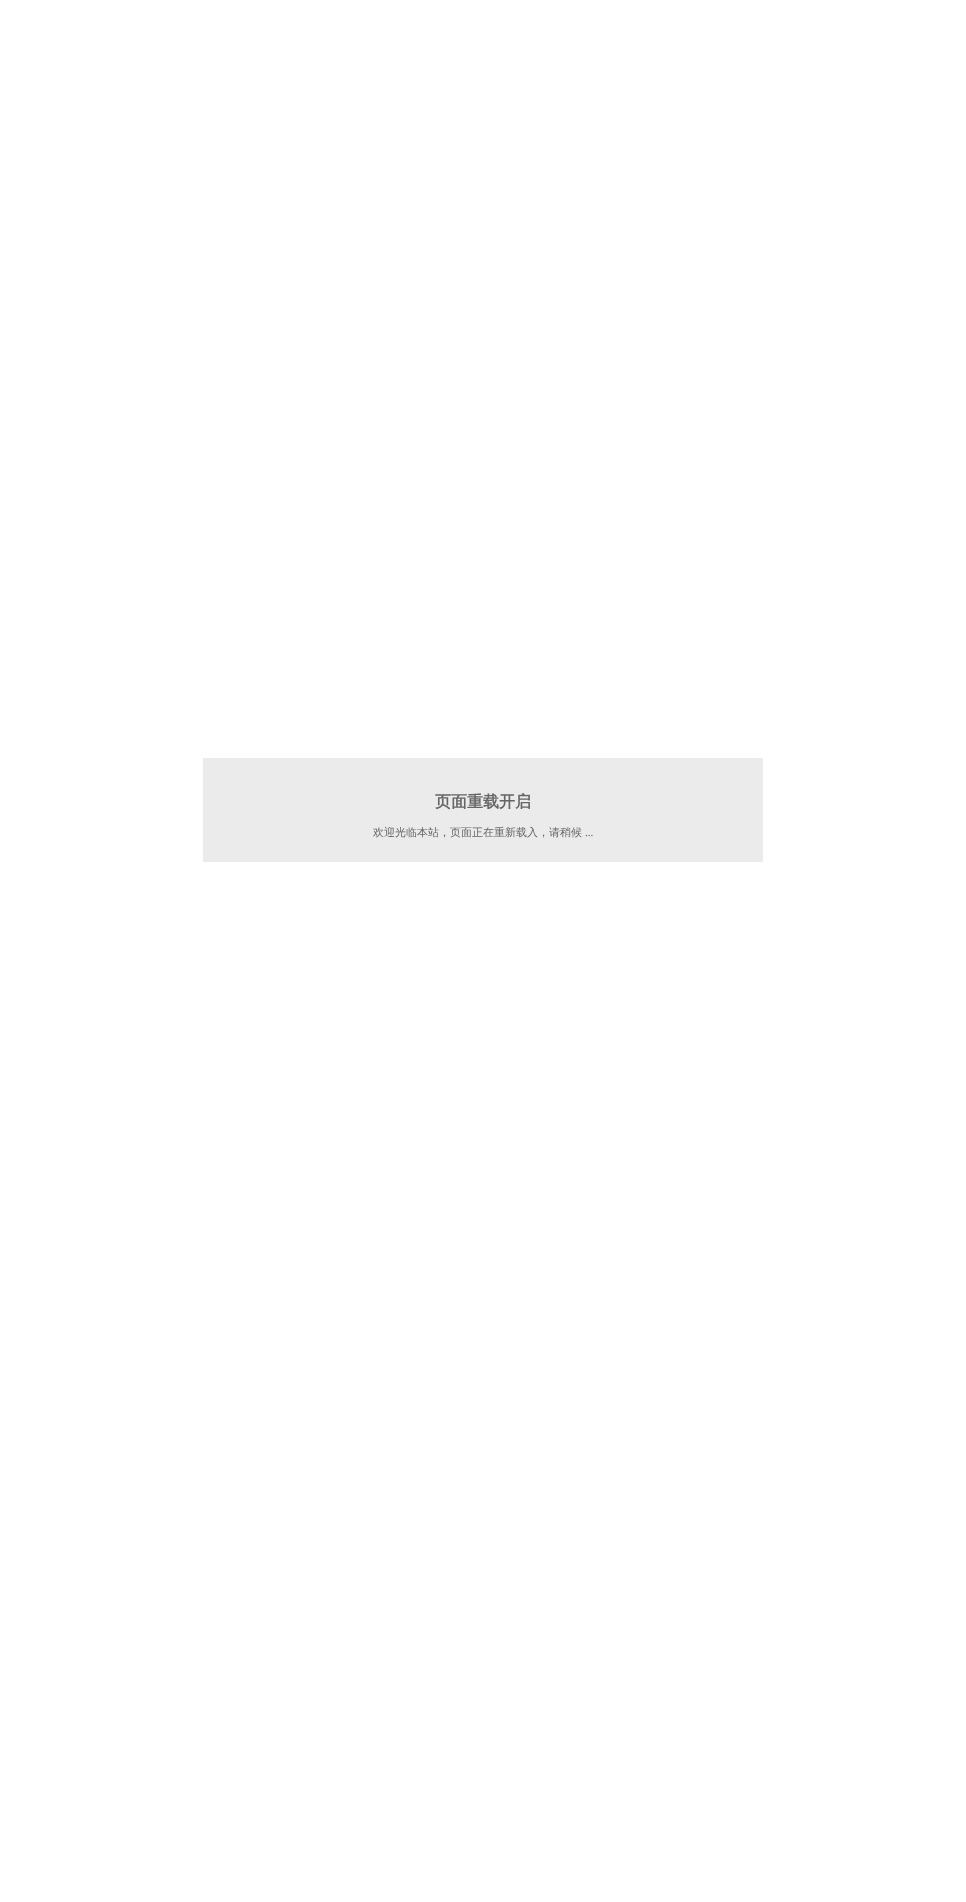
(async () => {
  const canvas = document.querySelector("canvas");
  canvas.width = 966;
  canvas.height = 1902;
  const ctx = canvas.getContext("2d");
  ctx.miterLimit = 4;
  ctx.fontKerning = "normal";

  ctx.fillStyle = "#ffffff";
  ctx.fillRect(0, 0, 966, 1902);
  ctx.fillStyle = "#ebebeb";
  ctx.fillRect(203, 758, 560, 104);
  ctx.font = "bold 16px WenQuanYi Zen Hei";
  ctx.fillStyle = "#666666";
  ctx.fillText("页面重载开启", 435, 807);
  ctx.font = "500 11px WenQuanYi Zen Hei";
  ctx.fillText("欢迎光临本站，页面正在重新载入，请稍候", 373, 836);
  ctx.font = "11px Liberation Serif";
  ctx.fillText("...", 585, 836);
})();
